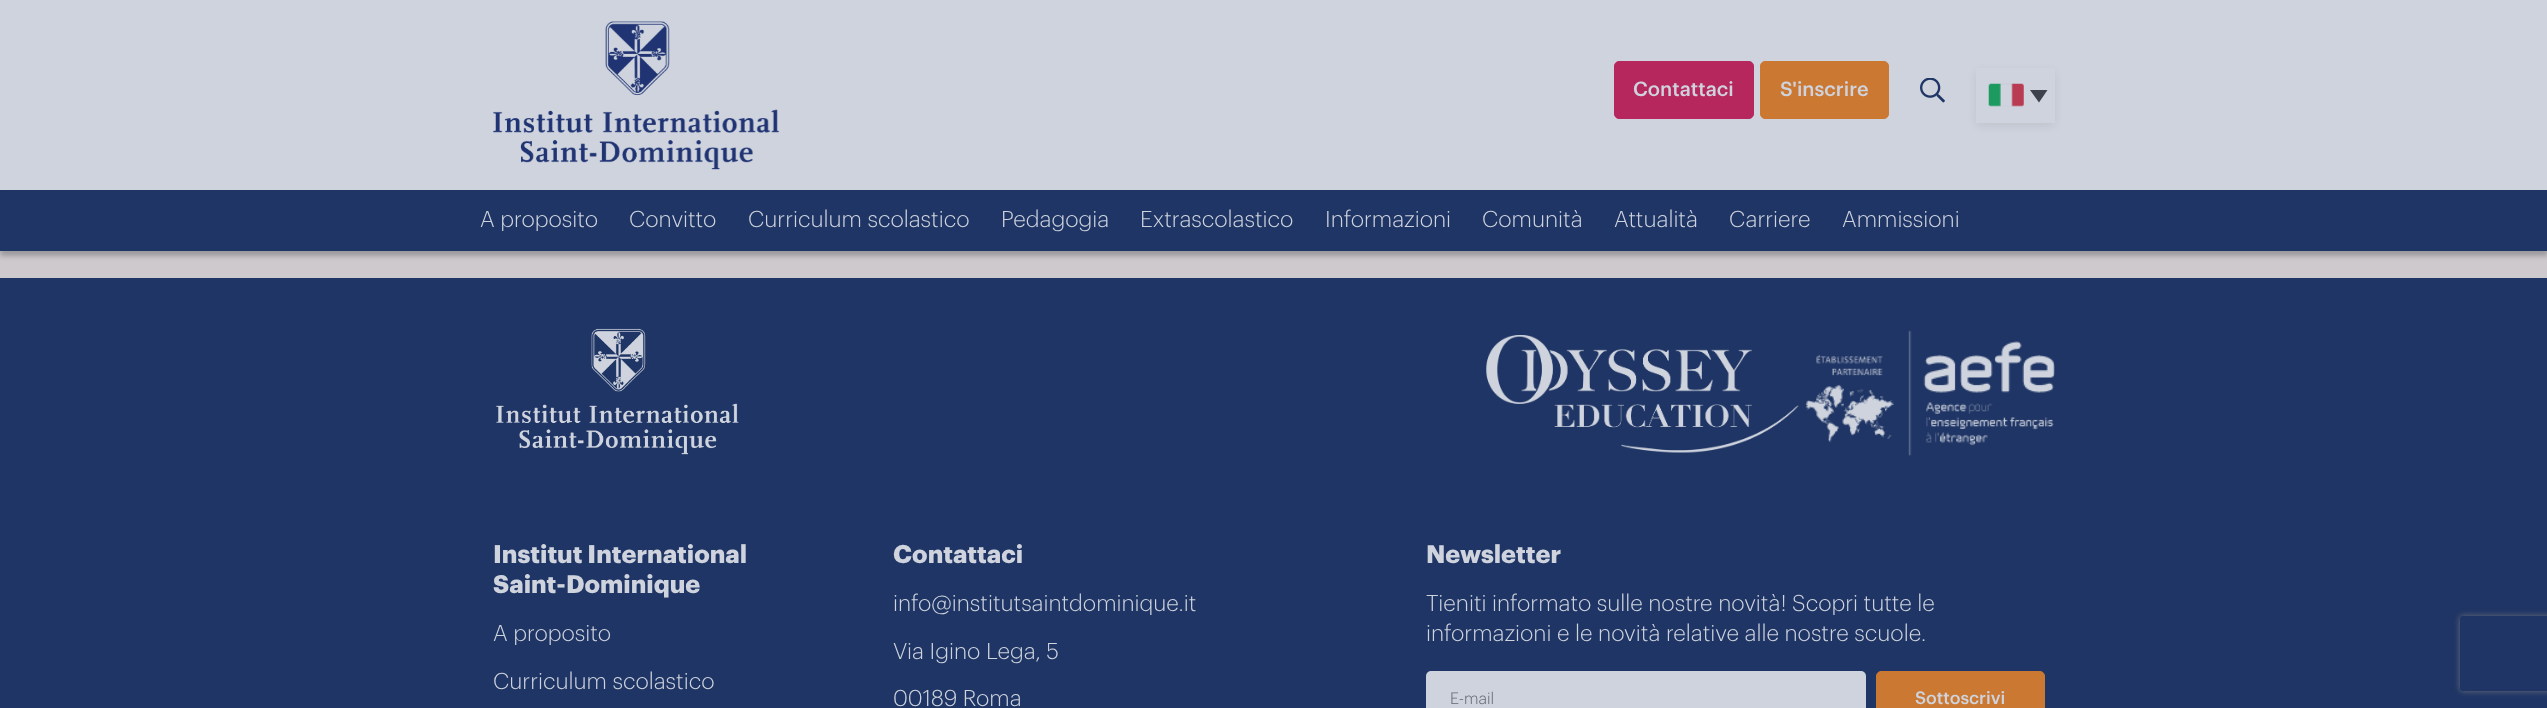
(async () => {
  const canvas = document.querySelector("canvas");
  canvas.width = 2547;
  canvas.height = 708;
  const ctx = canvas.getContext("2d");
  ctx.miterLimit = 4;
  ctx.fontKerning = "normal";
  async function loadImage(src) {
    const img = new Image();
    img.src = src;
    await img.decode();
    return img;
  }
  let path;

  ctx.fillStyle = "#cec9cc";
  ctx.fillRect(0, 0, 2547, 708);
  ctx.fillStyle = "#ced3dd";
  ctx.fillRect(0, 0, 2547, 190);
  ctx.drawImage(await loadImage("img/1.png"), 493, 21, 287, 149);
  ctx.fillStyle = "#b6285d";
  ctx.beginPath();
  ctx.roundRect(1614.5, 61.5, 139, 57, 4.5);
  ctx.fill();
  ctx.strokeStyle = "#b6285d";
  ctx.stroke();
  ctx.fillStyle = "#cb7832";
  ctx.beginPath();
  ctx.roundRect(1760.5, 61.5, 128, 57, 4.5);
  ctx.fill();
  ctx.strokeStyle = "#cb7832";
  ctx.stroke();
  ctx.drawImage(await loadImage("img/2.png"), 1920, 78, 25, 25);
  ctx.fillStyle = "rgba(7, 12, 22, 0.08)";
  ctx.filter = "blur(4px)";
  ctx.beginPath();
  ctx.roundRect(1976, 71, 79, 55, 5);
  ctx.fill();
  ctx.filter = "none";
  ctx.fillStyle = "#ced3dd";
  ctx.fillRect(1976, 68, 79, 55);
  ctx.drawImage(await loadImage("img/3.png"), 1988, 83, 36, 24);
  ctx.fillStyle = "#3c414b";
  path = new Path2D("M2030 90H2047.5L2039 102.5Z");
  ctx.fill(path);
  ctx.fillStyle = "rgba(7, 12, 22, 0.25)";
  ctx.filter = "blur(2.5px)";
  ctx.beginPath();
  ctx.rect(0, 195, 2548, 61);
  ctx.fill();
  ctx.filter = "none";
  ctx.fillStyle = "#1f3565";
  ctx.fillRect(0, 190, 2547, 61);
  ctx.fillRect(0, 278, 2547, 430);
  ctx.drawImage(await loadImage("img/4.png"), 496, 328, 243, 127);
  ctx.drawImage(await loadImage("img/5.png"), 1486, 335, 313, 118);
  ctx.drawImage(await loadImage("img/6.png"), 1805, 330, 250, 126);
  ctx.fillStyle = "#ced3dd";
  ctx.beginPath();
  ctx.roundRect(1426, 671, 440, 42, 5);
  ctx.fill();
  ctx.fillStyle = "#cb7832";
  ctx.beginPath();
  ctx.roundRect(1876.5, 671.5, 168, 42, 4.5);
  ctx.fill();
  ctx.stroke();
  ctx.save();
  path = new Path2D("M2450 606H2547V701H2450ZM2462.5 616H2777.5C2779 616 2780 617 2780 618.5V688.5C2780 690 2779 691 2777.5 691H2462.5C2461 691 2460 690 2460 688.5V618.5C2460 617 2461 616 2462.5 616Z");
  ctx.clip(path, "evenodd");
  ctx.fillStyle = "#6b707a";
  ctx.filter = "blur(3px)";
  ctx.beginPath();
  ctx.roundRect(2460, 616, 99, 75, 2.5);
  ctx.fill();
  ctx.filter = "none";
  ctx.restore();
  ctx.font = "500 20px Graphik";
  ctx.fillStyle = "#ced3dd";
  ctx.fillText("Contattaci", 1633, 96);
  ctx.fillText("S'inscrire", 1780, 96);
  ctx.font = "300 22.5px Graphik";
  for (const [text, x, y] of [
    ["A proposito", 480, 227],
    ["Convitto", 629, 227],
    ["Curriculum scolastico", 748, 227],
    ["Pedagogia", 1001, 227],
    ["Extrascolastico", 1140, 227],
    ["Informazioni", 1325, 227],
    ["Comunità", 1482, 227],
    ["Attualità", 1614, 227],
    ["Carriere", 1729, 227],
    ["Ammissioni", 1842, 227],
  ]) {
    ctx.fillText(text, x, y);
  }
  ctx.font = "bold 25px Graphik";
  ctx.fillText("Institut International", 493, 563);
  ctx.fillText("Saint-Dominique", 493, 593);
  ctx.font = "300 22.5px Graphik";
  ctx.fillText("A proposito", 493, 641);
  ctx.fillText("Curriculum scolastico", 493, 689);
  ctx.font = "bold 25px Graphik";
  ctx.fillText("Contattaci", 893, 563);
  ctx.font = "300 22.5px Graphik";
  for (const [text, x, y] of [
    ["info@institutsaintdominique.it", 893, 611],
    ["Via Igino Lega, 5", 893, 659],
    ["00189 Roma", 893, 706],
  ]) {
    ctx.fillText(text, x, y);
  }
  ctx.font = "bold 25px Graphik";
  ctx.fillText("Newsletter", 1426, 563);
  ctx.font = "300 22.5px Graphik";
  ctx.fillText("Tieniti informato sulle nostre novità! Scopri tutte le", 1426, 611);
  ctx.fillText("informazioni e le novità relative alle nostre scuole.", 1426, 641);
  ctx.font = "300 16px Graphik";
  ctx.fillStyle = "#626771";
  ctx.fillText("E-mail", 1450, 704);
  ctx.font = "500 17.5px Graphik";
  ctx.fillStyle = "#ced3dd";
  ctx.fillText("Sottoscrivi", 1915, 704);
})();
